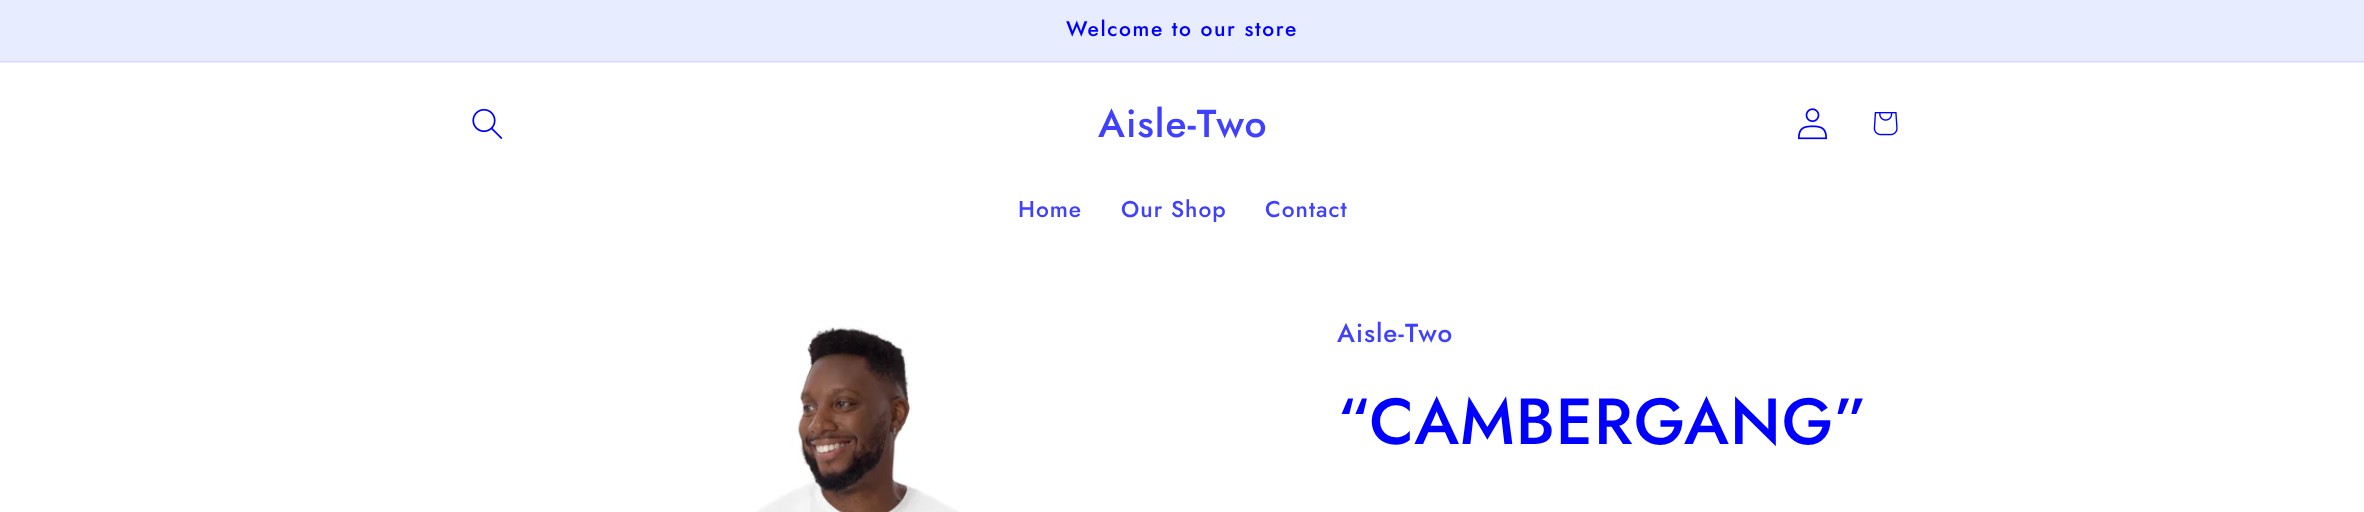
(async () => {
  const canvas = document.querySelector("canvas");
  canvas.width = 2364;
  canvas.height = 512;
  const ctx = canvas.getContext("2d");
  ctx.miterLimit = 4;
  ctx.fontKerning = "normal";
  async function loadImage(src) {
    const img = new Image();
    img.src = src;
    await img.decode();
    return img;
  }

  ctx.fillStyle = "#ffffff";
  ctx.fillRect(0, 0, 2364, 512);
  ctx.fillStyle = "#e7ecff";
  ctx.fillRect(0, 0, 2364, 63);
  ctx.fillStyle = "#d5d9ff";
  ctx.fillRect(0, 61, 2364, 1);
  ctx.drawImage(await loadImage("img/1.png"), 472, 108, 31, 31);
  ctx.drawImage(await loadImage("img/2.png"), 1797, 108, 31, 32);
  ctx.drawImage(await loadImage("img/3.png"), 1873, 112, 25, 24);
  ctx.drawImage(await loadImage("img/4.png"), 756, 326, 203, 186);
  ctx.letterSpacing = "1.6px";
  ctx.font = "500 21.1px Jost";
  ctx.fillStyle = "#0000ff";
  ctx.fillText("Welcome to our store", 1066, 36);
  ctx.letterSpacing = "1px";
  ctx.font = "500 39px Jost";
  ctx.fillStyle = "#4040ff";
  ctx.fillText("Aisle-Two", 1098, 137);
  ctx.font = "500 22.75px Jost";
  for (const [text, x, y] of [
    ["Home", 1018, 217],
    ["Our Shop", 1121, 217],
    ["Contact", 1265, 217],
  ]) {
    ctx.fillText(text, x, y);
  }
  ctx.font = "500 26px Jost";
  ctx.fillText("Aisle-Two", 1337, 342);
  ctx.font = "500 65px Jost";
  ctx.fillStyle = "#0000ff";
  ctx.fillText("“CAMBERGANG”", 1337, 444);
})();
